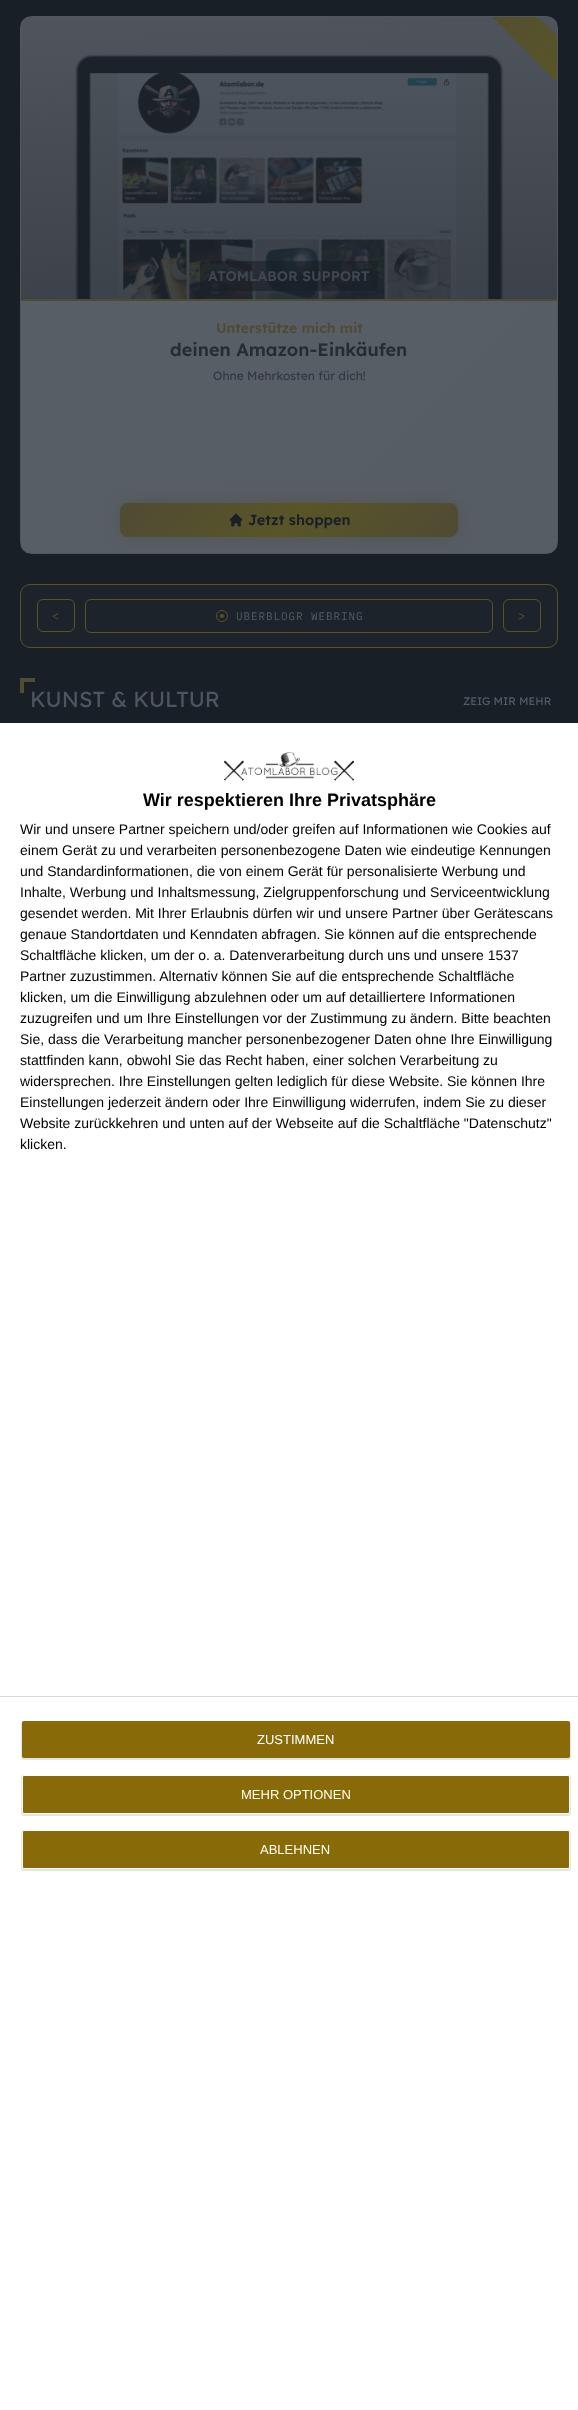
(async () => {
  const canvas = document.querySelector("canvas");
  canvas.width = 578;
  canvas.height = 2410;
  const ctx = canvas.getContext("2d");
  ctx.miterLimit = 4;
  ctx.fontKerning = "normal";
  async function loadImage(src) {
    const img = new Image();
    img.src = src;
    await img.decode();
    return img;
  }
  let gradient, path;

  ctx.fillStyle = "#191f27";
  ctx.fillRect(0, 0, 578, 2410);
  ctx.save();
  ctx.beginPath();
  ctx.roundRect(20, 16, 538, 538, 12);
  ctx.clip();
  gradient = ctx.createLinearGradient(21, 17, 557, 553);
  gradient.addColorStop(0, "#595f67");
  gradient.addColorStop(1, "#575d65");
  ctx.fillStyle = gradient;
  ctx.fillRect(21, 17, 536, 536);
  ctx.restore();
  ctx.beginPath();
  ctx.roundRect(20.5, 16.5, 537, 537, 11.5);
  ctx.strokeStyle = "#51575f";
  ctx.stroke();
  ctx.drawImage(await loadImage("img/1.png"), 21, 17, 536, 282);
  gradient = ctx.createLinearGradient(289, 17, 289, 299);
  gradient.addColorStop(0, "rgba(25, 31, 39, 0.1)");
  gradient.addColorStop(1, "rgba(25, 31, 39, 0.4)");
  ctx.fillStyle = gradient;
  ctx.beginPath();
  ctx.roundRect(21, 17, 536, 282, [11, 11, 0, 0]);
  ctx.fill();
  gradient = ctx.createLinearGradient(461, -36, 567, 70);
  gradient.addColorStop(0, "#4e4b35");
  gradient.addColorStop(1, "#595527");
  ctx.fillStyle = gradient;
  path = new Path2D("M557 80L556 81L492 17H538L557 36Z");
  ctx.fill(path);
  ctx.fillStyle = "#4e4b35";
  ctx.fillRect(21, 299, 536, 2);
  ctx.fillStyle = "rgba(25, 31, 39, 0.6)";
  ctx.beginPath();
  ctx.roundRect(200, 261, 178, 30, 4);
  ctx.fill();
  ctx.fillStyle = "rgba(78, 75, 53, 0.5)";
  ctx.filter = "blur(7.5px)";
  ctx.beginPath();
  ctx.roundRect(120, 503, 338, 34, 8);
  ctx.fill();
  ctx.filter = "none";
  gradient = ctx.createLinearGradient(196, 427, 382, 613);
  gradient.addColorStop(0, "#4e4b35");
  gradient.addColorStop(0.5, "#595527");
  gradient.addColorStop(1, "#4e4b35");
  ctx.fillStyle = gradient;
  ctx.beginPath();
  ctx.roundRect(120, 503, 338, 34, 8);
  ctx.fill();
  ctx.drawImage(await loadImage("img/2.png"), 229, 513, 14, 14);
  ctx.fillStyle = "#1d232b";
  ctx.beginPath();
  ctx.roundRect(20.5, 584.5, 537, 63, 9.5);
  ctx.fill();
  ctx.strokeStyle = "#595227";
  ctx.stroke();
  ctx.beginPath();
  ctx.roundRect(37.5, 599.5, 37, 32, 5.5);
  ctx.stroke();
  ctx.beginPath();
  ctx.roundRect(85.5, 599.5, 407, 33, 5.5);
  ctx.stroke();
  ctx.beginPath();
  ctx.arc(222, 616, 5.5, 0, Math.PI * 2);
  ctx.stroke();
  ctx.fillStyle = "#595227";
  ctx.beginPath();
  ctx.arc(222, 616, 2, 0, Math.PI * 2);
  ctx.fill();
  ctx.beginPath();
  ctx.roundRect(503.5, 599.5, 37, 32, 5.5);
  ctx.stroke();
  for (const [x, y, w, h, color] of [
    [20, 678, 15, 4, "#4f4d36"],
    [20, 678, 4, 15, "#4f4d36"],
    [0, 723, 578, 1687, "#ffffff"],
  ]) {
    ctx.fillStyle = color;
    ctx.fillRect(x, y, w, h);
  }
  ctx.drawImage(await loadImage("img/3.png"), 224, 752, 130, 29);
  ctx.fillStyle = "#d8d8d8";
  ctx.fillRect(0, 1696, 578, 1);
  ctx.fillStyle = "rgba(0, 0, 0, 0.1)";
  ctx.filter = "blur(0.5px)";
  ctx.beginPath();
  ctx.roundRect(21, 1721, 550, 39, 3);
  ctx.fill();
  ctx.filter = "none";
  ctx.fillStyle = "#886a08";
  ctx.beginPath();
  ctx.roundRect(22, 1721, 548, 37, 2);
  ctx.fill();
  ctx.fillStyle = "rgba(0, 0, 0, 0.1)";
  ctx.filter = "blur(0.5px)";
  ctx.beginPath();
  ctx.roundRect(21, 1775, 550, 41, 3);
  ctx.fill();
  ctx.filter = "none";
  ctx.fillStyle = "#886a08";
  ctx.beginPath();
  ctx.roundRect(22.5, 1775.5, 547, 38, 1.5);
  ctx.fill();
  ctx.strokeStyle = "#fffff0";
  ctx.stroke();
  ctx.fillStyle = "rgba(0, 0, 0, 0.1)";
  ctx.filter = "blur(0.5px)";
  ctx.beginPath();
  ctx.roundRect(21, 1830, 550, 41, 3);
  ctx.fill();
  ctx.filter = "none";
  ctx.fillStyle = "#886a08";
  ctx.beginPath();
  ctx.roundRect(22.5, 1830.5, 547, 38, 1.5);
  ctx.fill();
  ctx.stroke();
  ctx.font = "600 14px Lexend";
  ctx.fillStyle = "#414750";
  ctx.fillText("ATOMLABOR SUPPORT", 208, 281);
  ctx.fillStyle = "#4e4b35";
  ctx.fillText("Unterstütze mich mit", 216, 333);
  ctx.font = "600 18px Lexend";
  ctx.fillStyle = "#262c34";
  ctx.fillText("deinen Amazon-Einkäufen", 170, 356);
  ctx.font = "12px Lexend";
  ctx.fillStyle = "#323841";
  ctx.fillText("Ohne Mehrkosten für dich!", 213, 380);
  ctx.font = "600 14.5px Lexend";
  ctx.fillStyle = "#191f27";
  ctx.fillText("Jetzt shoppen", 248, 525);
  ctx.letterSpacing = "1px";
  ctx.font = "12px IBM Plex Mono";
  ctx.fillStyle = "#595227";
  ctx.fillText("<", 52, 620);
  ctx.letterSpacing = "0.9px";
  ctx.font = "11px IBM Plex Mono";
  ctx.fillStyle = "#555b64";
  ctx.fillText("UBERBLOGR WEBRING", 236, 620);
  ctx.letterSpacing = "1px";
  ctx.font = "12px IBM Plex Mono";
  ctx.fillStyle = "#595227";
  ctx.fillText(">", 518, 620);
  ctx.letterSpacing = "0px";
  ctx.font = "21.75px Lexend";
  ctx.fillStyle = "#4f555e";
  ctx.fillText("KUNST & KULTUR", 30, 707);
  ctx.font = "11px Lexend";
  ctx.fillStyle = "#555b64";
  ctx.fillText("ZEIG MIR MEHR", 463, 705);
  ctx.font = "bold 18px Liberation Sans";
  ctx.fillStyle = "#000000";
  ctx.fillText("Wir respektieren Ihre Privatsphäre", 143, 806);
  ctx.font = "14px Liberation Sans";
  for (const [text, x, y] of [
    ["Wir und unsere Partner speichern und/oder greifen auf Informationen wie Cookies auf", 20, 834],
    ["einem Gerät zu und verarbeiten personenbezogene Daten wie eindeutige Kennungen", 20, 855],
    ["und Standardinformationen, die von einem Gerät für personalisierte Werbung und", 20, 876],
    ["Inhalte, Werbung und Inhaltsmessung, Zielgruppenforschung und Serviceentwicklung", 20, 897],
    ["gesendet werden. Mit Ihrer Erlaubnis dürfen wir und unsere Partner über Gerätescans", 20, 918],
    ["genaue Standortdaten und Kenndaten abfragen. Sie können auf die entsprechende", 20, 939],
    ["Schaltfläche klicken, um der o. a. Datenverarbeitung durch uns und unsere 1537", 20, 960],
    ["Partner zuzustimmen. Alternativ können Sie auf die entsprechende Schaltfläche", 20, 981],
    ["klicken, um die Einwilligung abzulehnen oder um auf detailliertere Informationen", 20, 1002],
    ["zuzugreifen und um Ihre Einstellungen vor der Zustimmung zu ändern. Bitte beachten", 20, 1023],
    ["Sie, dass die Verarbeitung mancher personenbezogener Daten ohne Ihre Einwilligung", 20, 1044],
    ["stattfinden kann, obwohl Sie das Recht haben, einer solchen Verarbeitung zu", 20, 1065],
    ["widersprechen. Ihre Einstellungen gelten lediglich für diese Website. Sie können Ihre", 20, 1086],
    ["Einstellungen jederzeit ändern oder Ihre Einwilligung widerrufen, indem Sie zu dieser", 20, 1107],
    ["Website zurückkehren und unten auf der Webseite auf die Schaltfläche \"Datenschutz\"", 20, 1128],
    ["klicken.", 20, 1149],
  ]) {
    ctx.fillText(text, x, y);
  }
  ctx.font = "13px Liberation Sans";
  ctx.fillStyle = "#ffffff";
  ctx.fillText("ZUSTIMMEN", 257, 1744);
  ctx.fillStyle = "#fffff0";
  ctx.fillText("MEHR OPTIONEN", 241, 1799);
  ctx.fillText("ABLEHNEN", 260, 1854);
})();
